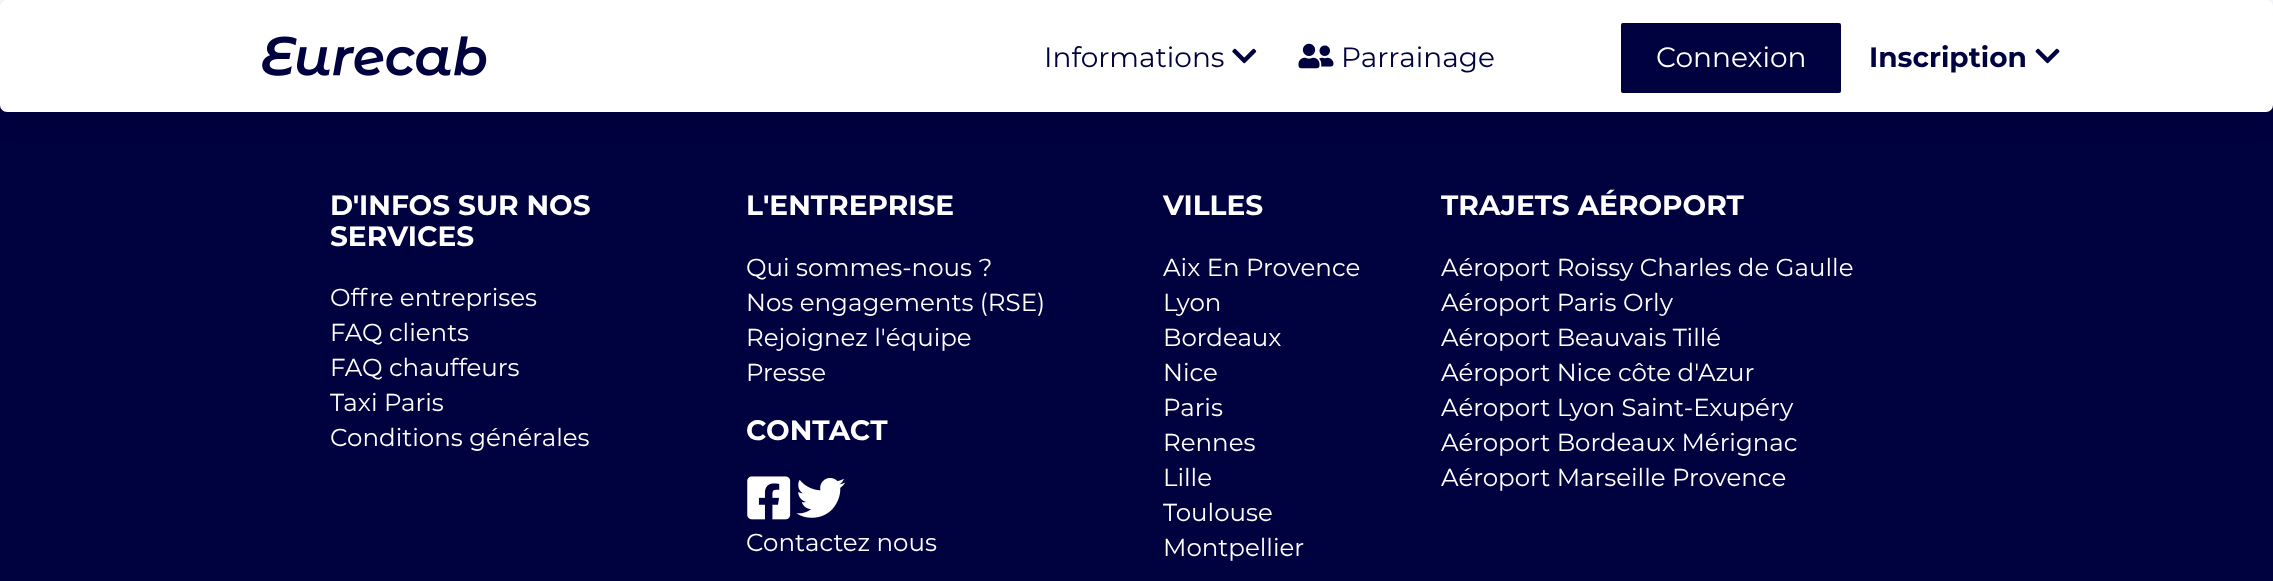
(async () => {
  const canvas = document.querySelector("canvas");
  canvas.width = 2273;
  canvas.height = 581;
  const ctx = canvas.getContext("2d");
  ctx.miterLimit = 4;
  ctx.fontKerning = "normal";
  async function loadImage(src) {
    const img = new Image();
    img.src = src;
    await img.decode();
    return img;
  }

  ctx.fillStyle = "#f5f8fb";
  ctx.fillRect(0, 0, 2273, 581);
  ctx.fillStyle = "#00013f";
  ctx.fillRect(0, 105, 2273, 476);
  ctx.fillStyle = "rgba(0, 0, 0, 0.06)";
  ctx.filter = "blur(14px)";
  ctx.beginPath();
  ctx.roundRect(0, 7, 2273, 112, 7);
  ctx.fill();
  ctx.filter = "none";
  ctx.fillStyle = "#ffffff";
  ctx.beginPath();
  ctx.roundRect(0, 0, 2273, 112, 7);
  ctx.fill();
  ctx.drawImage(await loadImage("img/1.png"), 262, 36, 225, 40);
  ctx.drawImage(await loadImage("img/2.png"), 1232, 48, 25, 16);
  ctx.drawImage(await loadImage("img/3.png"), 1298, 43, 36, 26);
  ctx.fillStyle = "#00013f";
  ctx.beginPath();
  ctx.roundRect(1621, 23, 220, 70, 2);
  ctx.fill();
  ctx.strokeStyle = "rgba(0, 0, 0, 0.04)";
  ctx.lineWidth = 2;
  ctx.strokeRect(1622, 24, 218, 68);
  ctx.drawImage(await loadImage("img/4.png"), 2035, 48, 25, 16);
  ctx.drawImage(await loadImage("img/5.png"), 747, 476, 44, 44);
  ctx.drawImage(await loadImage("img/6.png"), 796, 478, 50, 40);
  ctx.font = "28px Montserrat";
  ctx.fillText("Informations", 1044, 67);
  ctx.fillText("Parrainage", 1341, 67);
  ctx.fillStyle = "#ffffff";
  ctx.fillText("Connexion", 1656, 67);
  ctx.font = "bold 28px Montserrat";
  ctx.fillStyle = "#00013f";
  ctx.fillText("Inscription", 1869, 67);
  ctx.fillStyle = "#ffffff";
  ctx.fillText("D'INFOS SUR NOS", 330, 215);
  ctx.fillText("SERVICES", 330, 246);
  ctx.font = "24.5px Montserrat";
  for (const [text, x, y] of [
    ["Offre entreprises", 330, 306],
    ["FAQ clients", 330, 341],
    ["FAQ chauffeurs", 330, 376],
    ["Taxi Paris", 330, 411],
    ["Conditions générales", 330, 446],
  ]) {
    ctx.fillText(text, x, y);
  }
  ctx.font = "bold 28px Montserrat";
  ctx.fillText("L'ENTREPRISE", 746, 215);
  ctx.font = "24.5px Montserrat";
  for (const [text, x, y] of [
    ["Qui sommes-nous ?", 746, 276],
    ["Nos engagements (RSE)", 746, 311],
    ["Rejoignez l'équipe", 746, 346],
    ["Presse", 746, 381],
  ]) {
    ctx.fillText(text, x, y);
  }
  ctx.font = "bold 28px Montserrat";
  ctx.fillText("CONTACT", 746, 440);
  ctx.font = "24.5px Montserrat";
  ctx.fillText("Contactez nous", 746, 551);
  ctx.font = "bold 28px Montserrat";
  ctx.fillText("VILLES", 1163, 215);
  ctx.font = "24.5px Montserrat";
  for (const [text, x, y] of [
    ["Aix En Provence", 1163, 276],
    ["Lyon", 1163, 311],
    ["Bordeaux", 1163, 346],
    ["Nice", 1163, 381],
    ["Paris", 1163, 416],
    ["Rennes", 1163, 451],
    ["Lille", 1163, 486],
    ["Toulouse", 1163, 521],
    ["Montpellier", 1163, 556],
  ]) {
    ctx.fillText(text, x, y);
  }
  ctx.font = "bold 28px Montserrat";
  ctx.fillText("TRAJETS AÉROPORT", 1441, 215);
  ctx.font = "24.5px Montserrat";
  for (const [text, x, y] of [
    ["Aéroport Roissy Charles de Gaulle", 1441, 276],
    ["Aéroport Paris Orly", 1441, 311],
    ["Aéroport Beauvais Tillé", 1441, 346],
    ["Aéroport Nice côte d'Azur", 1441, 381],
    ["Aéroport Lyon Saint-Exupéry", 1441, 416],
    ["Aéroport Bordeaux Mérignac", 1441, 451],
    ["Aéroport Marseille Provence", 1441, 486],
  ]) {
    ctx.fillText(text, x, y);
  }
})();
